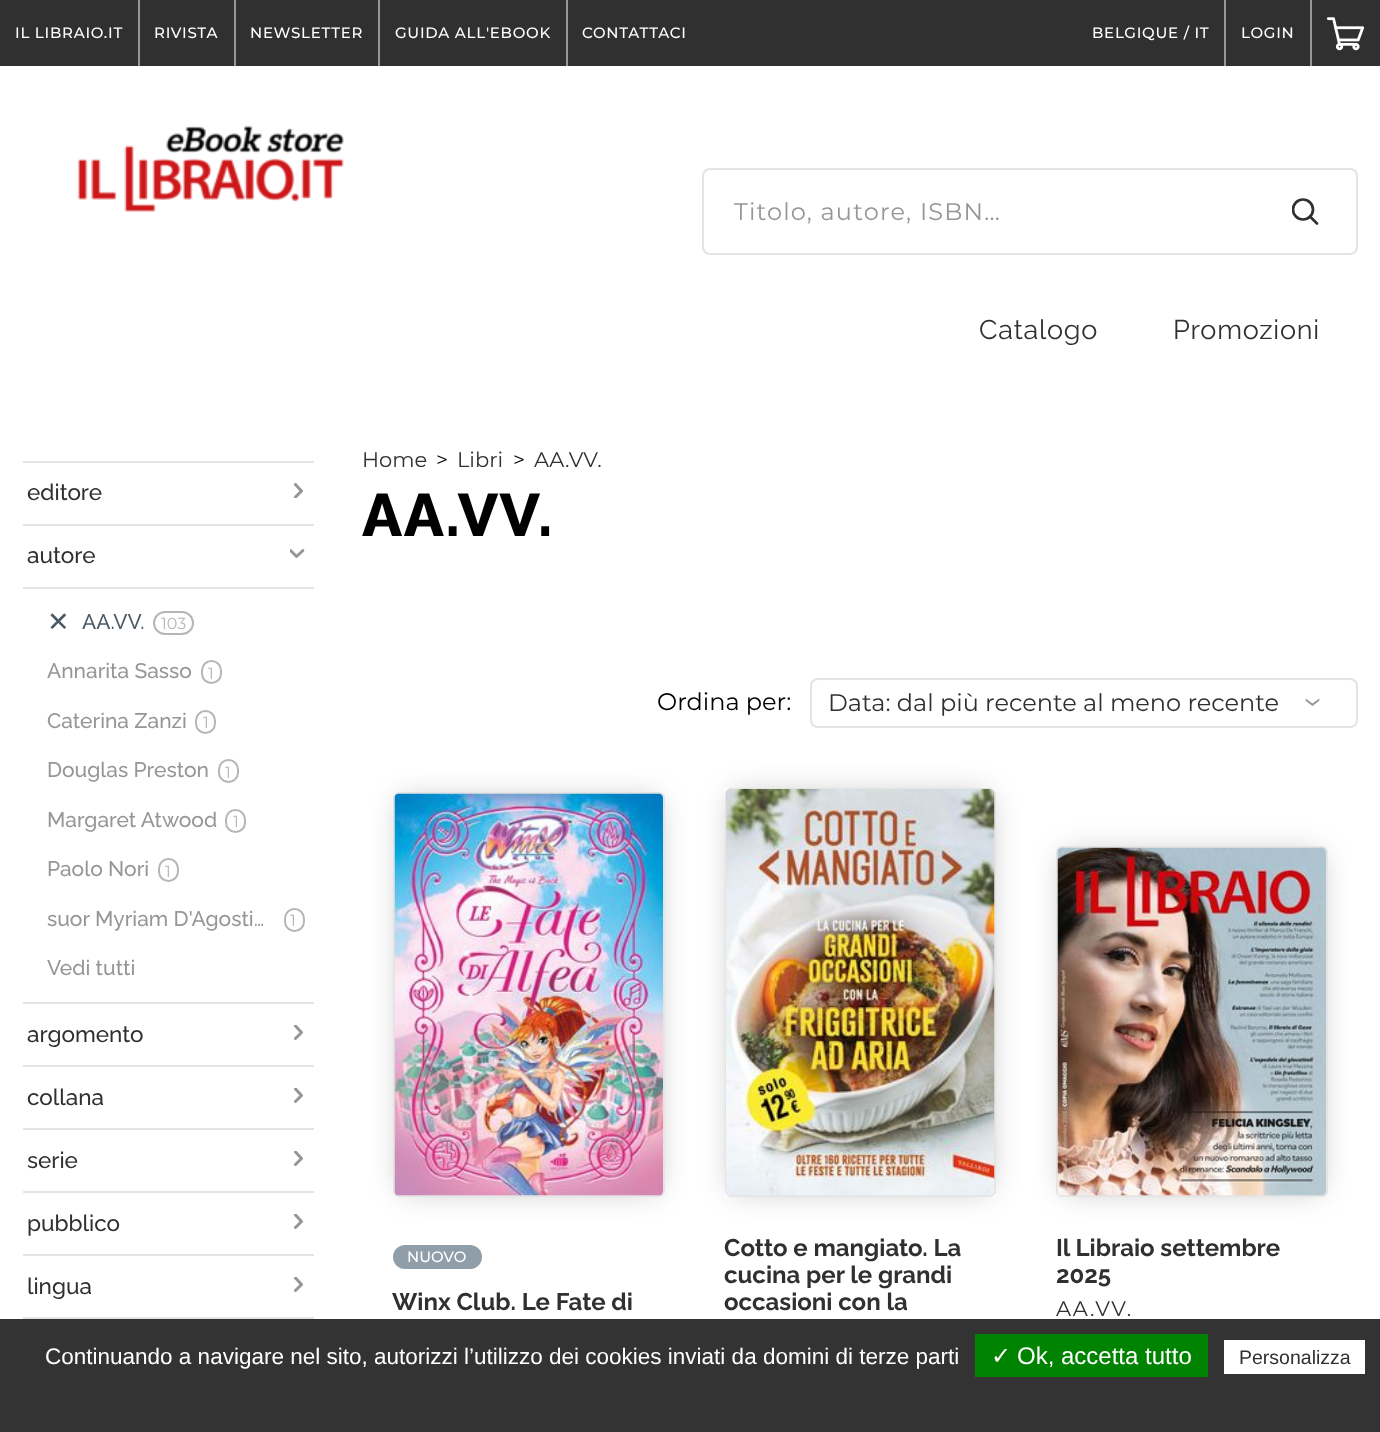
(async () => {
  const canvas = document.querySelector("canvas");
  canvas.width = 1380;
  canvas.height = 1432;
  const ctx = canvas.getContext("2d");
  ctx.miterLimit = 4;
  ctx.fontKerning = "normal";
  async function loadImage(src) {
    const img = new Image();
    img.src = src;
    await img.decode();
    return img;
  }
  let path;

  ctx.fillStyle = "#ffffff";
  ctx.fillRect(0, 0, 1380, 1432);
  for (const [x, y, w, h, color] of [
    [0, 0, 1380, 66, "#303030"],
    [138, 0, 2, 66, "#969696"],
    [234, 0, 2, 66, "#969696"],
    [378, 0, 2, 66, "#969696"],
    [566, 0, 2, 66, "#969696"],
    [1224, 0, 2, 66, "#969696"],
    [1310, 0, 2, 66, "#969696"],
  ]) {
    ctx.fillStyle = color;
    ctx.fillRect(x, y, w, h);
  }
  ctx.drawImage(await loadImage("img/1.png"), 1326, 17, 39, 34);
  ctx.drawImage(await loadImage("img/2.png"), 77, 125, 267, 87);
  ctx.beginPath();
  ctx.roundRect(703, 169, 654, 85, 7);
  ctx.strokeStyle = "#e4e4e4";
  ctx.lineWidth = 2;
  ctx.stroke();
  ctx.save();
  ctx.beginPath();
  ctx.rect(1292, 198, 27, 27);
  ctx.clip();
  ctx.beginPath();
  ctx.arc(1303, 209.5, 10, 0, Math.PI * 2);
  ctx.strokeStyle = "#303030";
  ctx.lineWidth = 2.7;
  ctx.stroke();
  ctx.restore();
  path = new Path2D("M1317 223.5L1310 216.5");
  ctx.strokeStyle = "#303030";
  ctx.lineWidth = 2.7;
  ctx.lineCap = "round";
  ctx.lineJoin = "round";
  ctx.stroke(path);
  ctx.fillStyle = "#e4e4e4";
  ctx.fillRect(23, 461, 291, 2);
  ctx.fillRect(23, 524, 291, 2);
  ctx.save();
  ctx.beginPath();
  ctx.rect(291, 483, 15, 15);
  ctx.clip();
  path = new Path2D("M295.5 484.5L301.5 491L295.5 497");
  ctx.strokeStyle = "#969696";
  ctx.lineWidth = 3;
  ctx.stroke(path);
  ctx.restore();
  ctx.fillRect(23, 587, 291, 2);
  ctx.save();
  path = new Path2D("M305 545V560H290V545Z");
  ctx.clip(path);
  path = new Path2D("M304.5 546V561H289.5V546Z");
  ctx.clip(path);
  path = new Path2D("M303 550.5L296.5 556.5L290.5 550.5");
  ctx.strokeStyle = "#969696";
  ctx.lineWidth = 3;
  ctx.stroke(path);
  ctx.restore();
  ctx.fillRect(23, 1002, 291, 2);
  ctx.beginPath();
  ctx.roundRect(154, 612, 39, 22, 11);
  ctx.strokeStyle = "#b6b6b6";
  ctx.lineWidth = 2;
  ctx.lineJoin = "miter";
  ctx.stroke();
  ctx.beginPath();
  ctx.roundRect(202, 661, 19, 22, 9.5);
  ctx.stroke();
  ctx.beginPath();
  ctx.roundRect(196, 711, 19, 22, 9.5);
  ctx.stroke();
  ctx.beginPath();
  ctx.roundRect(219, 760, 19, 22, 9.5);
  ctx.stroke();
  ctx.beginPath();
  ctx.roundRect(226, 810, 19, 22, 9.5);
  ctx.stroke();
  ctx.beginPath();
  ctx.roundRect(159, 859, 19, 22, 9.5);
  ctx.stroke();
  ctx.beginPath();
  ctx.roundRect(285, 909, 19, 22, 9.5);
  ctx.stroke();
  ctx.fillRect(23, 1065, 291, 2);
  ctx.save();
  ctx.beginPath();
  ctx.rect(291, 1025, 15, 15);
  ctx.clip();
  path = new Path2D("M295.5 1026L301.5 1032.5L295.5 1038.5");
  ctx.strokeStyle = "#969696";
  ctx.lineWidth = 3;
  ctx.lineJoin = "round";
  ctx.stroke(path);
  ctx.restore();
  ctx.fillRect(23, 1128, 291, 2);
  ctx.save();
  ctx.beginPath();
  ctx.rect(291, 1088, 15, 15);
  ctx.clip();
  path = new Path2D("M295.5 1089L301.5 1095.5L295.5 1101.5");
  ctx.strokeStyle = "#969696";
  ctx.lineWidth = 3;
  ctx.lineJoin = "round";
  ctx.stroke(path);
  ctx.restore();
  ctx.fillRect(23, 1191, 291, 2);
  ctx.save();
  ctx.beginPath();
  ctx.rect(291, 1151, 15, 15);
  ctx.clip();
  path = new Path2D("M295.5 1152L301.5 1158.5L295.5 1164.5");
  ctx.strokeStyle = "#969696";
  ctx.lineWidth = 3;
  ctx.lineJoin = "round";
  ctx.stroke(path);
  ctx.restore();
  ctx.fillRect(23, 1254, 291, 2);
  ctx.save();
  ctx.beginPath();
  ctx.rect(291, 1214, 15, 15);
  ctx.clip();
  path = new Path2D("M295.5 1215L301.5 1221.5L295.5 1227.5");
  ctx.strokeStyle = "#969696";
  ctx.lineWidth = 3;
  ctx.lineJoin = "round";
  ctx.stroke(path);
  ctx.restore();
  ctx.fillRect(23, 1317, 291, 2);
  ctx.save();
  ctx.beginPath();
  ctx.rect(291, 1277, 15, 15);
  ctx.clip();
  path = new Path2D("M295.5 1278L301.5 1284.5L295.5 1290.5");
  ctx.strokeStyle = "#969696";
  ctx.lineWidth = 3;
  ctx.lineJoin = "round";
  ctx.stroke(path);
  ctx.restore();
  ctx.beginPath();
  ctx.roundRect(811, 679, 546, 48, 7);
  ctx.strokeStyle = "#e4e4e4";
  ctx.stroke();
  ctx.fillStyle = "rgba(0, 0, 0, 0.25)";
  ctx.filter = "blur(15px)";
  ctx.beginPath();
  ctx.rect(401, 800, 256, 390);
  ctx.fill();
  ctx.filter = "none";
  ctx.beginPath();
  ctx.roundRect(394, 793, 270, 403, 5);
  ctx.stroke();
  ctx.drawImage(await loadImage("img/3.png"), 394, 793, 269, 403);
  ctx.fillStyle = "#8f9ea8";
  ctx.beginPath();
  ctx.roundRect(393, 1245, 89, 24, 12);
  ctx.fill();
  ctx.save();
  path = new Path2D("M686 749H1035V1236H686ZM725 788H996V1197H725Z");
  ctx.clip(path, "evenodd");
  ctx.fillStyle = "rgba(0, 0, 0, 0.25)";
  ctx.filter = "blur(15px)";
  ctx.beginPath();
  ctx.rect(732, 795, 257, 395);
  ctx.fill();
  ctx.filter = "none";
  ctx.restore();
  ctx.beginPath();
  ctx.roundRect(726, 789, 269, 407, 5);
  ctx.stroke();
  ctx.drawImage(await loadImage("img/4.png"), 726, 789, 269, 407);
  ctx.fillStyle = "rgba(0, 0, 0, 0.25)";
  ctx.filter = "blur(15px)";
  ctx.beginPath();
  ctx.rect(1064, 854, 256, 336);
  ctx.fill();
  ctx.filter = "none";
  ctx.beginPath();
  ctx.roundRect(1057, 847, 270, 349, 5);
  ctx.stroke();
  ctx.drawImage(await loadImage("img/5.png"), 1057, 847, 269, 349);
  for (const [x, y, w, h, color] of [
    [0, 1319, 1380, 113, "#333333"],
    [975, 1334, 233, 43, "#008300"],
    [1224, 1340, 141, 34, "#ffffff"],
  ]) {
    ctx.fillStyle = color;
    ctx.fillRect(x, y, w, h);
  }
  ctx.letterSpacing = "0.75px";
  ctx.font = "500 15px Montserrat";
  for (const [text, x, y] of [
    ["IL LIBRAIO.IT", 15, 38],
    ["RIVISTA", 154, 38],
    ["NEWSLETTER", 250, 38],
    ["GUIDA ALL'EBOOK", 395, 38],
    ["CONTATTACI", 582, 38],
    ["BELGIQUE / IT", 1092, 38],
    ["LOGIN", 1241, 38],
  ]) {
    ctx.fillText(text, x, y);
  }
  ctx.letterSpacing = "1.2px";
  ctx.font = "24px Montserrat";
  ctx.fillStyle = "#969696";
  ctx.fillText("Titolo, autore, ISBN…", 734, 220);
  ctx.letterSpacing = "0.75px";
  ctx.font = "27px Raleway";
  ctx.fillStyle = "#303030";
  ctx.fillText("Catalogo", 979, 339);
  ctx.fillText("Promozioni", 1173, 339);
  ctx.letterSpacing = "0px";
  ctx.font = "500 22.5px Raleway";
  ctx.fillText("editore", 27, 500);
  ctx.fillText("autore", 27, 563);
  ctx.font = "27px DejaVu Sans";
  ctx.fillStyle = "#4c5b65";
  ctx.fillText("✕", 47, 631);
  ctx.font = "500 21px Raleway";
  ctx.fillText("AA.VV.", 82, 629);
  ctx.font = "16px Montserrat";
  ctx.fillStyle = "#b6b6b6";
  ctx.fillText("103", 161, 629);
  ctx.font = "500 21px Raleway";
  ctx.fillStyle = "#969696";
  ctx.fillText("Annarita Sasso", 47, 678);
  ctx.font = "16px Montserrat";
  ctx.fillStyle = "#b6b6b6";
  ctx.fillText("1", 208, 679);
  ctx.font = "500 21px Raleway";
  ctx.fillStyle = "#969696";
  ctx.fillText("Caterina Zanzi", 47, 728);
  ctx.font = "16px Montserrat";
  ctx.fillStyle = "#b6b6b6";
  ctx.fillText("1", 203, 728);
  ctx.font = "500 21px Raleway";
  ctx.fillStyle = "#969696";
  ctx.fillText("Douglas Preston", 47, 777);
  ctx.font = "16px Montserrat";
  ctx.fillStyle = "#b6b6b6";
  ctx.fillText("1", 225, 778);
  ctx.font = "500 21px Raleway";
  ctx.fillStyle = "#969696";
  ctx.fillText("Margaret Atwood", 47, 827);
  ctx.font = "16px Montserrat";
  ctx.fillStyle = "#b6b6b6";
  ctx.fillText("1", 233, 827);
  ctx.font = "500 21px Raleway";
  ctx.fillStyle = "#969696";
  ctx.fillText("Paolo Nori", 47, 876);
  ctx.font = "16px Montserrat";
  ctx.fillStyle = "#b6b6b6";
  ctx.fillText("1", 165, 877);
  ctx.font = "500 21px Raleway";
  ctx.fillStyle = "#969696";
  ctx.fillText("suor Myriam D'Agosti…", 47, 926);
  ctx.font = "16px Montserrat";
  ctx.fillStyle = "#b6b6b6";
  ctx.fillText("1", 290, 926);
  ctx.font = "500 21px Raleway";
  ctx.fillStyle = "#969696";
  ctx.fillText("Vedi tutti", 47, 975);
  ctx.font = "500 22.5px Raleway";
  ctx.fillStyle = "#303030";
  for (const [text, x, y] of [
    ["argomento", 27, 1042],
    ["collana", 27, 1105],
    ["serie", 27, 1168],
    ["pubblico", 27, 1231],
    ["lingua", 27, 1294],
  ]) {
    ctx.fillText(text, x, y);
  }
  ctx.font = "21px Montserrat";
  ctx.fillText("Home", 362, 467);
  ctx.fillStyle = "#000000";
  ctx.fillText(">", 436, 467);
  ctx.fillStyle = "#303030";
  ctx.fillText("Libri", 457, 467);
  ctx.fillStyle = "#000000";
  ctx.fillText(">", 513, 467);
  ctx.fillStyle = "#303030";
  ctx.fillText("AA.VV.", 534, 467);
  ctx.letterSpacing = "1.5px";
  ctx.font = "800 60px Raleway";
  ctx.fillStyle = "#000000";
  ctx.fillText("AA.VV.", 362, 536);
  ctx.letterSpacing = "0px";
  ctx.font = "24px Montserrat";
  ctx.fillText("Ordina per:", 657, 710);
  ctx.fillStyle = "#303030";
  ctx.fillText("Data: dal più recente al meno recente", 828, 711);
  ctx.font = "36px Montserrat";
  ctx.fillStyle = "#969696";
  ctx.save();
  ctx.translate(1303, 697);
  ctx.rotate(90 * Math.PI / 180);
  ctx.fillText("›", 0, 0);
  ctx.restore();
  ctx.font = "500 15px Montserrat";
  ctx.fillStyle = "#ffffff";
  ctx.fillText("NUOVO", 407, 1262);
  ctx.font = "bold 24px Raleway";
  ctx.fillStyle = "#303030";
  for (const [text, x, y] of [
    ["Winx Club. Le Fate di", 392, 1310],
    ["Cotto e mangiato. La", 724, 1256],
    ["cucina per le grandi", 724, 1283],
    ["occasioni con la", 724, 1310],
    ["Il Libraio settembre", 1056, 1256],
    ["2025", 1056, 1283],
  ]) {
    ctx.fillText(text, x, y);
  }
  ctx.letterSpacing = "1.5px";
  ctx.font = "21px Montserrat";
  ctx.fillText("AA.VV.", 1056, 1316);
  ctx.letterSpacing = "0px";
  ctx.font = "22.5px Liberation Sans";
  ctx.fillStyle = "#ffffff";
  ctx.fillText("Continuando a navigare nel sito, autorizzi l’utilizzo dei cookies inviati da domini di terze parti", 45, 1364);
  ctx.font = "24px DejaVu Sans";
  ctx.fillText("✓", 991, 1364);
  ctx.font = "24px Liberation Sans";
  ctx.fillText("Ok, accetta tutto", 1017, 1364);
  ctx.font = "19.5px Liberation Sans";
  ctx.fillStyle = "#303030";
  ctx.fillText("Personalizza", 1239, 1364);
})();
